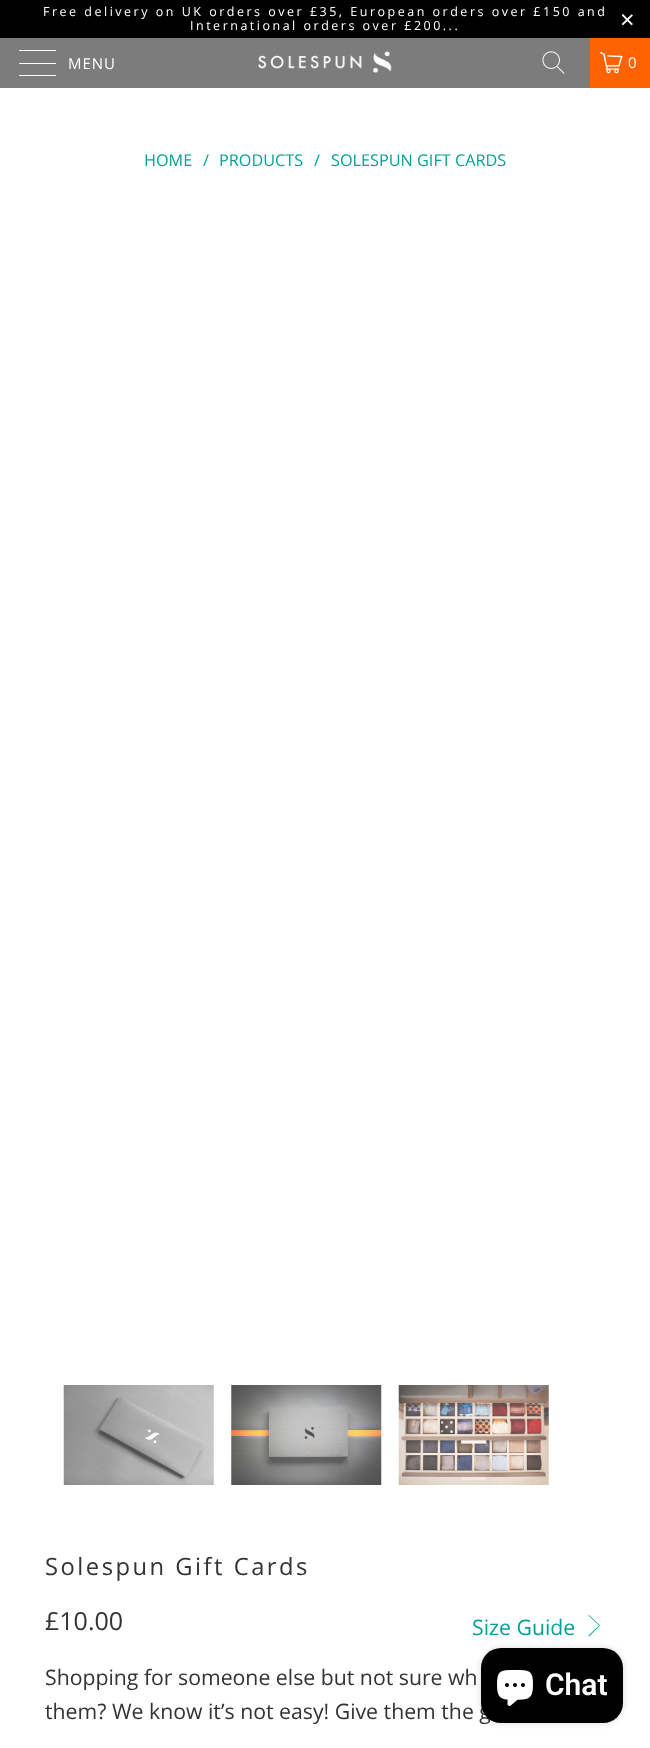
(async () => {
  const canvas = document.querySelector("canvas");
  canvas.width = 650;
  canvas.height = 1748;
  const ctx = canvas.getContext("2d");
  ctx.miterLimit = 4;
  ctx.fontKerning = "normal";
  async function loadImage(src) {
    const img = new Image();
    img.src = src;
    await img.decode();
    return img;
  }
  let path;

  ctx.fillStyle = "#ffffff";
  ctx.fillRect(0, 0, 650, 1748);
  ctx.fillStyle = "#000000";
  ctx.fillRect(0, 0, 650, 38);
  ctx.fillStyle = "#7c7c7c";
  ctx.fillRect(0, 38, 590, 50);
  ctx.fillStyle = "#ffffff";
  ctx.beginPath();
  ctx.roundRect(19, 50, 37, 1, 0.5);
  ctx.fill();
  ctx.beginPath();
  ctx.roundRect(19, 63, 37, 1, 0.5);
  ctx.fill();
  ctx.beginPath();
  ctx.roundRect(19, 75, 37, 1, 0.5);
  ctx.fill();
  ctx.drawImage(await loadImage("img/1.png"), 258, 51, 134, 22);
  ctx.drawImage(await loadImage("img/2.png"), 542, 51, 23, 23);
  ctx.fillStyle = "#ff6200";
  ctx.fillRect(590, 38, 60, 50);
  ctx.drawImage(await loadImage("img/3.png"), 600, 52, 23, 22);
  ctx.drawImage(await loadImage("img/4.png"), 63, 1385, 151, 100);
  ctx.drawImage(await loadImage("img/5.png"), 231, 1385, 151, 100);
  ctx.drawImage(await loadImage("img/6.png"), 398, 1385, 151, 100);
  ctx.fillStyle = "#03a196";
  path = new Path2D("M589 1636.5L588.5 1635.5L599 1625.5L588.5 1615.5L589 1615L600 1625.5Z");
  ctx.fill(path);
  ctx.fillStyle = "rgba(0, 0, 0, 0.15)";
  ctx.filter = "blur(3px)";
  ctx.beginPath();
  ctx.roundRect(481, 1648, 142, 75, 20);
  ctx.fill();
  ctx.filter = "none";
  ctx.letterSpacing = "2.5px";
  ctx.font = "12.5px Open Sans";
  ctx.fillStyle = "#ffffff";
  ctx.fillText("Free delivery on UK orders over £35, European orders over £150 and", 43, 16);
  ctx.fillText("International orders over £200...", 190, 30);
  ctx.font = "25px Liberation Sans";
  ctx.fillText("×", 620, 28);
  ctx.letterSpacing = "1px";
  ctx.font = "15px Open Sans";
  ctx.fillText("MENU", 68, 69);
  ctx.fillText("0", 628, 68);
  ctx.letterSpacing = "0px";
  ctx.font = "16.25px Open Sans";
  ctx.fillStyle = "#03a196";
  for (const [text, x, y] of [
    ["HOME", 144, 166],
    ["/", 203, 166],
    ["PRODUCTS", 219, 166],
    ["/", 314, 166],
    ["SOLESPUN GIFT CARDS", 331, 166],
  ]) {
    ctx.fillText(text, x, y);
  }
  ctx.letterSpacing = "2.5px";
  ctx.font = "23.75px Open Sans";
  ctx.fillStyle = "#333333";
  ctx.fillText("Solespun Gift Cards", 45, 1575);
  ctx.letterSpacing = "0px";
  ctx.font = "25px Open Sans";
  ctx.fillText("£10.00", 45, 1630);
  ctx.font = "21.25px Open Sans";
  ctx.fillStyle = "#03a196";
  ctx.fillText("Size Guide", 472, 1635);
  ctx.fillStyle = "#333333";
  ctx.fillText("Shopping for someone else but not sure wh", 45, 1685);
  ctx.fillText("them? We know it’s not easy! Give them the g", 45, 1719);
  ctx.fillStyle = "#000000";
  ctx.beginPath();
  ctx.roundRect(481, 1648, 142, 75, 20);
  ctx.fill();
  ctx.drawImage(await loadImage("img/7.png"), 497, 1670, 36, 36);
  ctx.font = "600 30px Roboto";
  ctx.fillStyle = "#ffffff";
  ctx.fillText("Chat", 545, 1695);
})();
